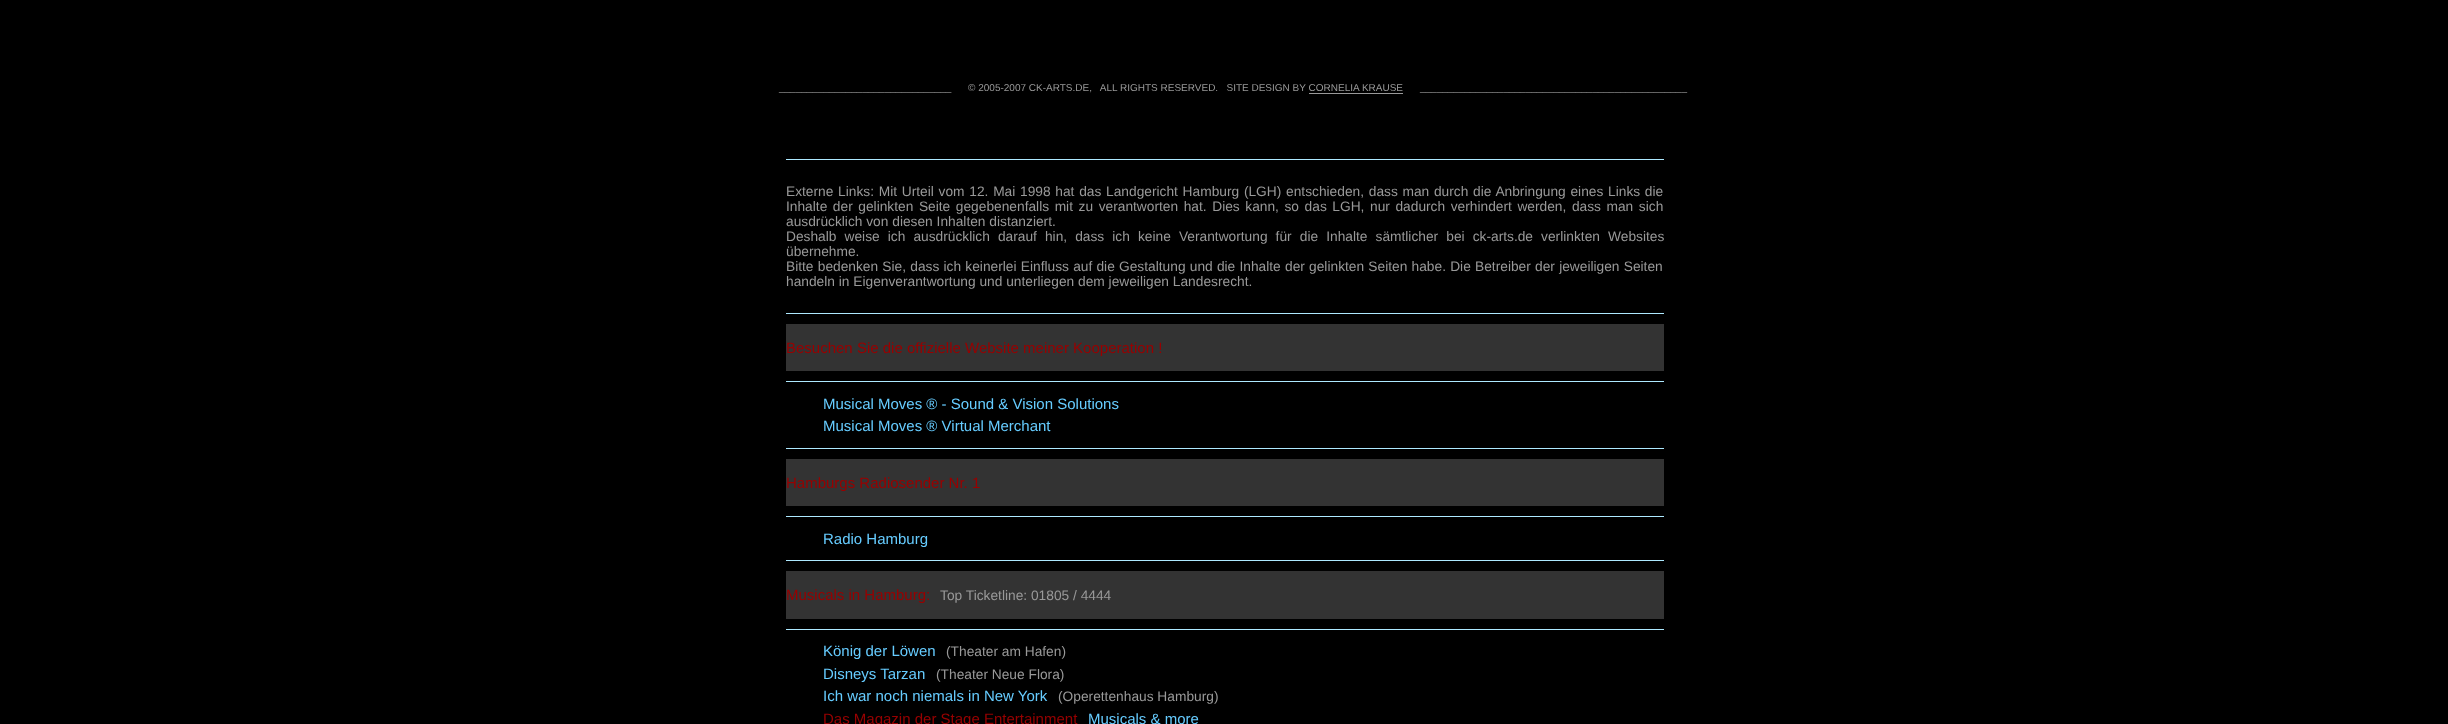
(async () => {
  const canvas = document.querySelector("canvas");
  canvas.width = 2448;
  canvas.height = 724;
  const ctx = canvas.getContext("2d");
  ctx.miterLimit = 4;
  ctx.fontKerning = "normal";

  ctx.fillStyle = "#000000";
  ctx.fillRect(0, 0, 2448, 724);
  for (const [x, y, w, h, color] of [
    [1309, 93, 94, 1, "#999999"],
    [786, 159, 878, 1, "#aee9ff"],
    [786, 313, 878, 1, "#aee9ff"],
    [786, 324, 878, 47, "#333333"],
    [786, 381, 878, 1, "#aee9ff"],
    [786, 448, 878, 1, "#aee9ff"],
    [786, 459, 878, 47, "#333333"],
    [786, 516, 878, 1, "#aee9ff"],
    [786, 560, 878, 1, "#aee9ff"],
    [786, 571, 878, 48, "#333333"],
    [786, 629, 878, 1, "#aee9ff"],
  ]) {
    ctx.fillStyle = color;
    ctx.fillRect(x, y, w, h);
  }
  ctx.font = "10px Liberation Sans";
  ctx.fillStyle = "#999999";
  ctx.fillText("_______________________________      © 2005-2007 CK-ARTS.DE,   ALL RIGHTS RESERVED.   SITE DESIGN BY CORNELIA KRAUSE", 779, 91);
  ctx.fillText("________________________________________________", 1420, 91);
  ctx.wordSpacing = "0.9px";
  ctx.font = "13.75px Liberation Sans";
  ctx.fillText("Externe Links: Mit Urteil vom 12. Mai 1998 hat das Landgericht Hamburg (LGH) entschieden, dass man durch die Anbringung eines Links die", 786, 196);
  ctx.wordSpacing = "1.75px";
  ctx.fillText("Inhalte der gelinkten Seite gegebenenfalls mit zu verantworten hat. Dies kann, so das LGH, nur dadurch verhindert werden, dass man sich", 786, 211);
  ctx.wordSpacing = "0px";
  ctx.fillText("ausdrücklich von diesen Inhalten distanziert.", 786, 226);
  ctx.wordSpacing = "4.25px";
  ctx.fillText("Deshalb weise ich ausdrücklich darauf hin, dass ich keine Verantwortung für die Inhalte sämtlicher bei ck-arts.de verlinkten Websites", 786, 241);
  ctx.wordSpacing = "0px";
  ctx.fillText("übernehme.", 786, 256);
  ctx.wordSpacing = "0.4px";
  ctx.fillText("Bitte bedenken Sie, dass ich keinerlei Einfluss auf die Gestaltung und die Inhalte der gelinkten Seiten habe. Die Betreiber der jeweiligen Seiten", 786, 271);
  ctx.wordSpacing = "0px";
  ctx.fillText("handeln in Eigenverantwortung und unterliegen dem jeweiligen Landesrecht.", 786, 286);
  ctx.font = "15px Liberation Sans";
  ctx.fillStyle = "#990000";
  ctx.fillText("Besuchen Sie die offizielle Website meiner Kooperation !", 786, 353);
  ctx.fillStyle = "#66ccff";
  ctx.fillText("Musical Moves ® - Sound & Vision Solutions", 823, 409);
  ctx.fillText("Musical Moves ® Virtual Merchant", 823, 431);
  ctx.fillStyle = "#990000";
  ctx.fillText("Hamburgs Radiosender Nr. 1", 786, 488);
  ctx.fillStyle = "#66ccff";
  ctx.fillText("Radio Hamburg", 823, 544);
  ctx.fillStyle = "#990000";
  ctx.fillText("Musicals in Hamburg:", 786, 600);
  ctx.font = "13.75px Liberation Sans";
  ctx.fillStyle = "#999999";
  ctx.fillText("Top Ticketline: 01805 / 4444", 940, 600);
  ctx.font = "15px Liberation Sans";
  ctx.fillStyle = "#66ccff";
  ctx.fillText("König der Löwen", 823, 656);
  ctx.font = "13.75px Liberation Sans";
  ctx.fillStyle = "#999999";
  ctx.fillText("(Theater am Hafen)", 946, 656);
  ctx.font = "15px Liberation Sans";
  ctx.fillStyle = "#66ccff";
  ctx.fillText("Disneys Tarzan", 823, 679);
  ctx.font = "13.75px Liberation Sans";
  ctx.fillStyle = "#999999";
  ctx.fillText("(Theater Neue Flora)", 936, 679);
  ctx.font = "15px Liberation Sans";
  ctx.fillStyle = "#66ccff";
  ctx.fillText("Ich war noch niemals in New York", 823, 701);
  ctx.font = "13.75px Liberation Sans";
  ctx.fillStyle = "#999999";
  ctx.fillText("(Operettenhaus Hamburg)", 1058, 701);
  ctx.font = "15px Liberation Sans";
  ctx.fillStyle = "#990000";
  ctx.fillText("Das Magazin der Stage Entertainment", 823, 724);
  ctx.fillStyle = "#66ccff";
  ctx.fillText("Musicals & more", 1088, 724);
})();
